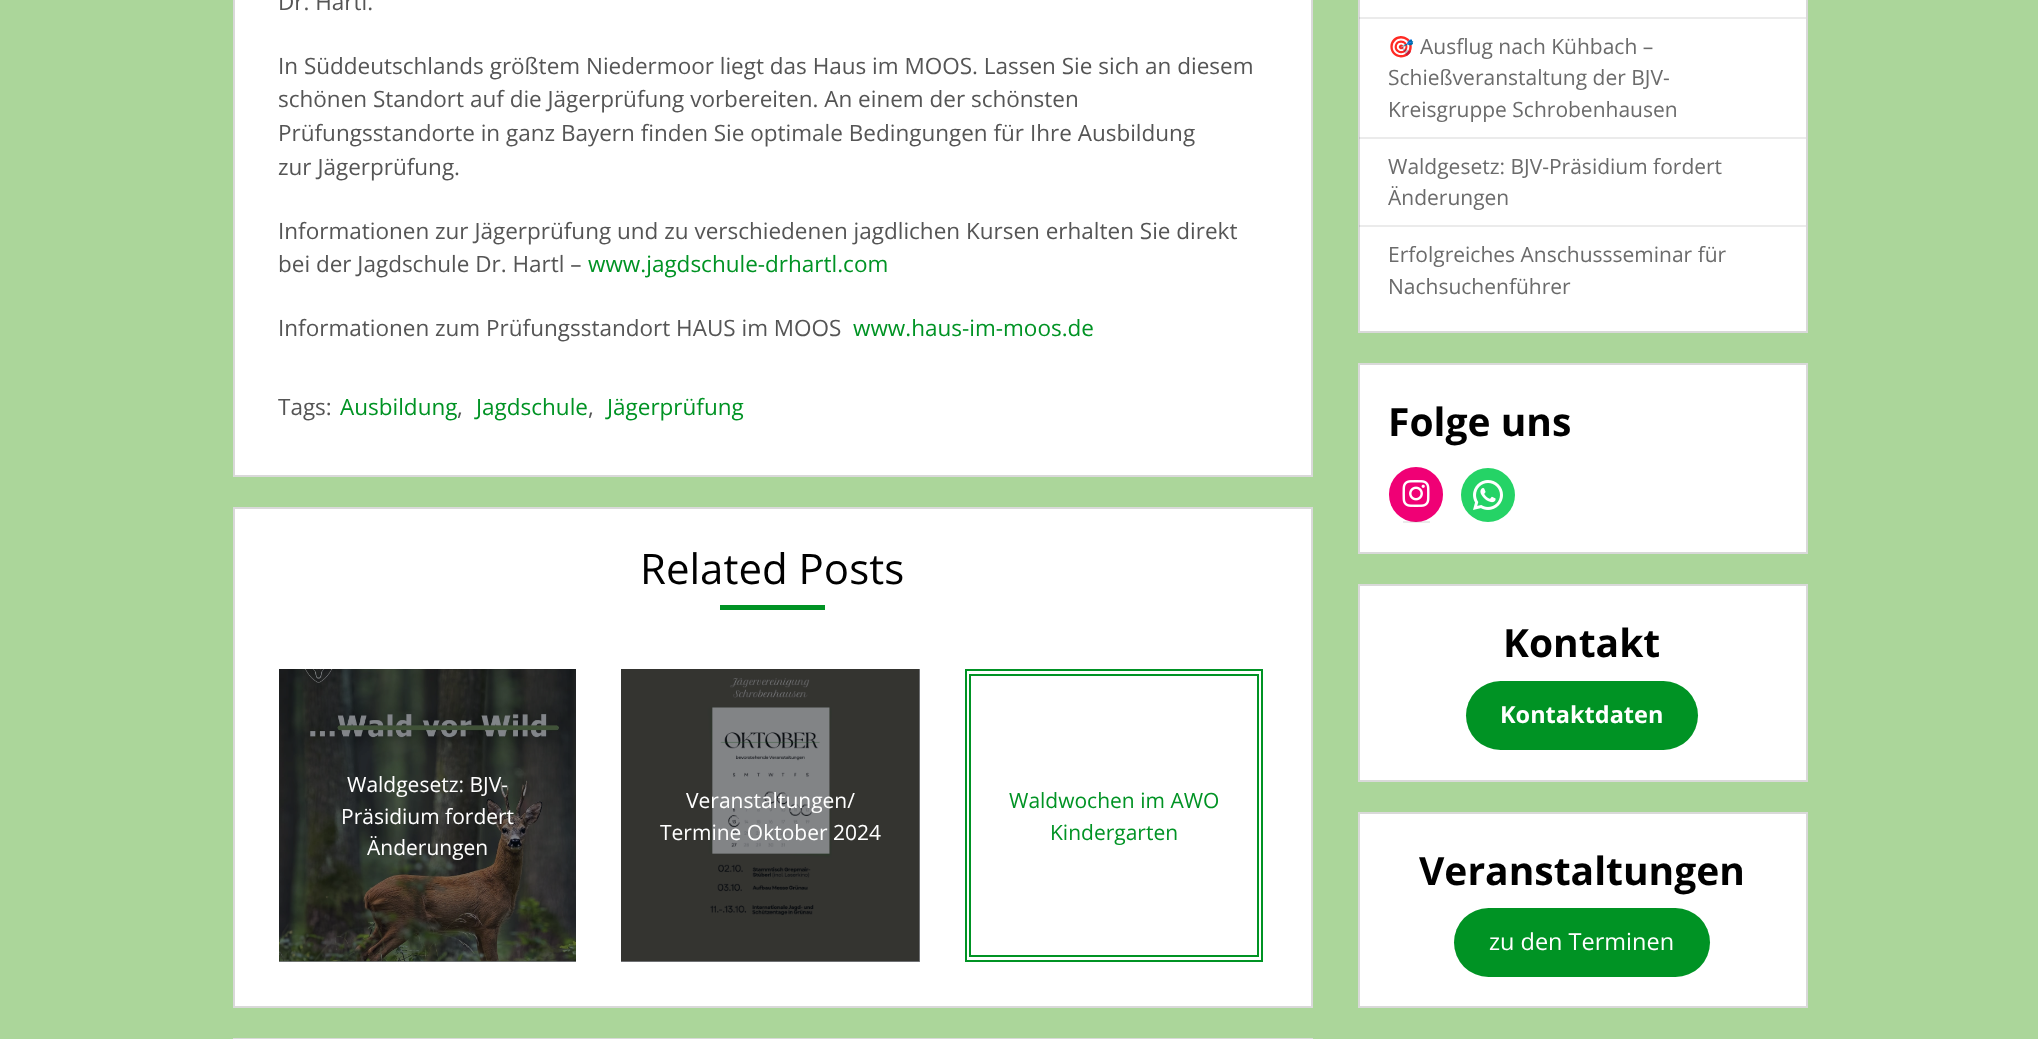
(async () => {
  const canvas = document.querySelector("canvas");
  canvas.width = 2038;
  canvas.height = 1039;
  const ctx = canvas.getContext("2d");
  ctx.miterLimit = 4;
  ctx.fontKerning = "normal";
  async function loadImage(src) {
    const img = new Image();
    img.src = src;
    await img.decode();
    return img;
  }

  ctx.fillStyle = "#abd69a";
  ctx.fillRect(0, 0, 2038, 1039);
  ctx.fillStyle = "#ffffff";
  ctx.beginPath();
  ctx.rect(234, -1, 1078, 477);
  ctx.fill();
  ctx.strokeStyle = "#d9d9d9";
  ctx.lineWidth = 2;
  ctx.stroke();
  for (const [x, y, w, h, color] of [
    [235, 509, 1076, 497, "#ffffff"],
    [621, 669, 299, 293, "#82858a"],
    [279, 961, 297, 1, "#82858a"],
  ]) {
    ctx.fillStyle = color;
    ctx.fillRect(x, y, w, h);
  }
  ctx.strokeRect(234, 508, 1078, 499);
  ctx.fillStyle = "#009324";
  ctx.fillRect(720, 605, 105, 5);
  ctx.drawImage(await loadImage("img/1.png"), 279, 669, 297, 293);
  ctx.drawImage(await loadImage("img/2.png"), 621, 669, 299, 293);
  ctx.strokeStyle = "#009324";
  ctx.strokeRect(966, 670, 296, 291);
  ctx.strokeRect(970, 675, 288, 281);
  ctx.strokeStyle = "#d9d9d9";
  ctx.strokeRect(234, 1039, 1078, 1);
  ctx.fillStyle = "#ffffff";
  ctx.beginPath();
  ctx.rect(1359, -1, 448, 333);
  ctx.fill();
  ctx.stroke();
  for (const [x, y, w, h, color] of [
    [1359, 17, 447, 2, "rgba(0, 0, 0, 0.08)"],
    [1359, 137, 447, 2, "rgba(0, 0, 0, 0.08)"],
    [1359, 225, 447, 2, "rgba(0, 0, 0, 0.08)"],
  ]) {
    ctx.fillStyle = color;
    ctx.fillRect(x, y, w, h);
  }
  ctx.fillStyle = "#ffffff";
  ctx.beginPath();
  ctx.rect(1359, 364, 448, 189);
  ctx.fill();
  ctx.stroke();
  ctx.fillStyle = "#f00075";
  ctx.beginPath();
  ctx.roundRect(1389, 467, 54, 55, 27);
  ctx.fill();
  ctx.fillStyle = "rgba(0, 0, 0, 0.08)";
  ctx.fillRect(1403, 521, 27, 2);
  ctx.drawImage(await loadImage("img/3.png"), 1402, 480, 28, 27);
  ctx.fillStyle = "#25d366";
  ctx.beginPath();
  ctx.arc(1488, 495, 27, 0, Math.PI * 2);
  ctx.fill();
  ctx.drawImage(await loadImage("img/4.png"), 1473, 480, 30, 30);
  ctx.fillStyle = "#ffffff";
  ctx.beginPath();
  ctx.rect(1359, 585, 448, 196);
  ctx.fill();
  ctx.stroke();
  ctx.fillStyle = "#009324";
  ctx.beginPath();
  ctx.roundRect(1466, 681, 232, 69, 34.5);
  ctx.fill();
  ctx.fillStyle = "#ffffff";
  ctx.beginPath();
  ctx.rect(1359, 813, 448, 194);
  ctx.fill();
  ctx.stroke();
  ctx.fillStyle = "#009324";
  ctx.beginPath();
  ctx.roundRect(1454, 908, 256, 69, 34.5);
  ctx.fill();
  ctx.font = "22.5px Open Sans";
  ctx.fillStyle = "#555555";
  for (const [text, x, y] of [
    ["Dr. Hartl.", 278, 10],
    ["In Süddeutschlands größtem Niedermoor liegt das Haus im MOOS. Lassen Sie sich an diesem", 278, 74],
    ["schönen Standort auf die Jägerprüfung vorbereiten. An einem der schönsten", 278, 107],
    ["Prüfungsstandorte in ganz Bayern finden Sie optimale Bedingungen für Ihre Ausbildung", 278, 141],
    ["zur Jägerprüfung.", 278, 175],
    ["Informationen zur Jägerprüfung und zu verschiedenen jagdlichen Kursen erhalten Sie direkt", 278, 239],
    ["bei der Jagdschule Dr. Hartl –", 278, 272],
  ]) {
    ctx.fillText(text, x, y);
  }
  ctx.fillStyle = "#009324";
  ctx.fillText("www.jagdschule-drhartl.com", 588, 272);
  ctx.fillStyle = "#555555";
  ctx.fillText("Informationen zum Prüfungsstandort HAUS im MOOS", 278, 336);
  ctx.fillStyle = "#009324";
  ctx.fillText("www.haus-im-moos.de", 853, 336);
  ctx.fillStyle = "#555555";
  ctx.fillText("Tags:", 278, 415);
  ctx.fillStyle = "#009324";
  ctx.fillText("Ausbildung", 340, 415);
  ctx.fillStyle = "#555555";
  ctx.fillText(",", 457, 415);
  ctx.fillStyle = "#009324";
  ctx.fillText("Jagdschule", 476, 415);
  ctx.fillStyle = "#555555";
  ctx.fillText(",", 588, 415);
  ctx.fillStyle = "#009324";
  ctx.fillText("Jägerprüfung", 607, 415);
  ctx.font = "42px Open Sans";
  ctx.fillStyle = "#000000";
  ctx.fillText("Related Posts", 640, 584);
  ctx.font = "21px Open Sans";
  ctx.fillStyle = "#ffffff";
  for (const [text, x, y] of [
    ["Waldgesetz: BJV-", 347, 792],
    ["Präsidium fordert", 341, 824],
    ["Änderungen", 367, 855],
    ["Veranstaltungen/", 686, 808],
    ["Termine Oktober 2024", 660, 840],
  ]) {
    ctx.fillText(text, x, y);
  }
  ctx.fillStyle = "#009324";
  ctx.fillText("Waldwochen im AWO", 1009, 808);
  ctx.fillText("Kindergarten", 1050, 840);
  ctx.font = "21px Noto Color Emoji";
  ctx.fillStyle = "#6b6b6b";
  ctx.fillText("🎯", 1388, 54);
  ctx.font = "21px Open Sans";
  for (const [text, x, y] of [
    ["Ausflug nach Kühbach –", 1420, 54],
    ["Schießveranstaltung der BJV-", 1388, 85],
    ["Kreisgruppe Schrobenhausen", 1388, 117],
    ["Waldgesetz: BJV-Präsidium fordert", 1388, 174],
    ["Änderungen", 1388, 205],
    ["Erfolgreiches Anschussseminar für", 1388, 262],
    ["Nachsuchenführer", 1388, 294],
  ]) {
    ctx.fillText(text, x, y);
  }
  ctx.font = "bold 39px Open Sans";
  ctx.fillStyle = "#000000";
  ctx.fillText("Folge uns", 1388, 436);
  ctx.fillText("Kontakt", 1503, 657);
  ctx.font = "bold 23.5px Open Sans";
  ctx.fillStyle = "#ffffff";
  ctx.fillText("Kontaktdaten", 1500, 723);
  ctx.font = "bold 39px Open Sans";
  ctx.fillStyle = "#000000";
  ctx.fillText("Veranstaltungen", 1419, 885);
  ctx.font = "23.5px Open Sans";
  ctx.fillStyle = "#ffffff";
  ctx.fillText("zu den Terminen", 1489, 950);
})();
